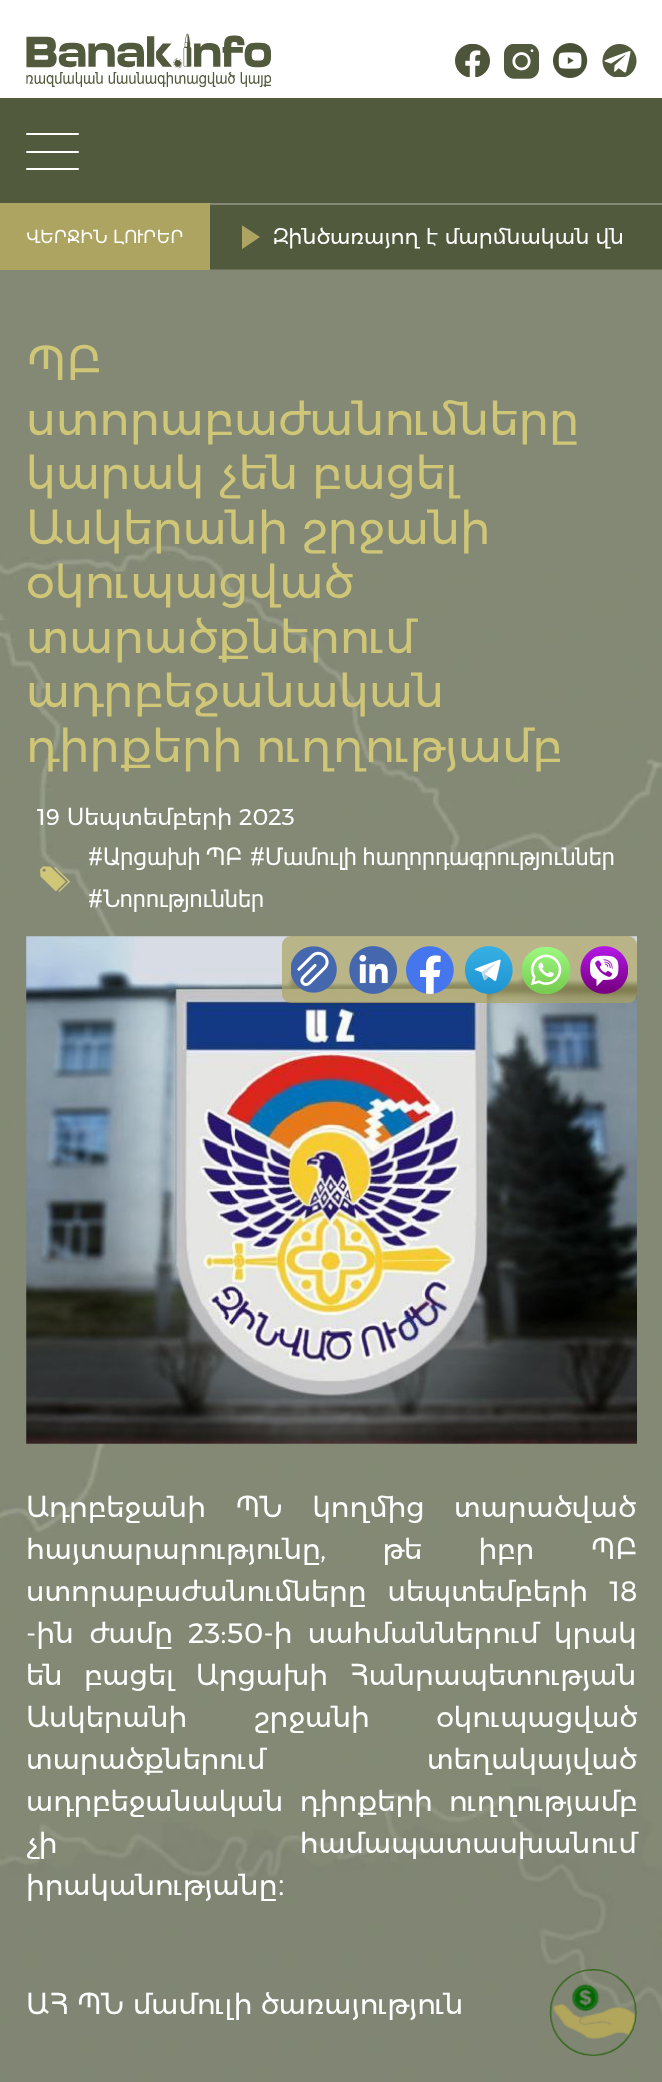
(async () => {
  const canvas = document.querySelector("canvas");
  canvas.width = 662;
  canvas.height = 2082;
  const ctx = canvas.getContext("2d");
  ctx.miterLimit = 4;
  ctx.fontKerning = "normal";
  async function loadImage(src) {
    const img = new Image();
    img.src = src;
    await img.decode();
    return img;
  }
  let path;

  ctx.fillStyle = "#ffffff";
  ctx.fillRect(0, 0, 662, 2082);
  ctx.drawImage(await loadImage("img/1.png"), 26, 33, 245, 55);
  ctx.drawImage(await loadImage("img/2.png"), 455, 44, 35, 33);
  ctx.drawImage(await loadImage("img/3.png"), 504, 44, 35, 35);
  ctx.drawImage(await loadImage("img/4.png"), 553, 43, 35, 35);
  ctx.drawImage(await loadImage("img/5.png"), 602, 44, 35, 33);
  ctx.fillStyle = "#515a3d";
  ctx.fillRect(0, 98, 662, 105);
  ctx.fillStyle = "#ffffff";
  ctx.beginPath();
  ctx.roundRect(26, 133, 53, 2, 1);
  ctx.fill();
  ctx.beginPath();
  ctx.roundRect(26, 151, 53, 2, 1);
  ctx.fill();
  ctx.beginPath();
  ctx.roundRect(26, 168, 53, 2, 1);
  ctx.fill();
  ctx.fillStyle = "#515a3d";
  ctx.fillRect(210, 205, 452, 65);
  ctx.drawImage(await loadImage("img/6.png"), 0, 269, 662, 1813);
  ctx.fillStyle = "#ada461";
  ctx.fillRect(0, 203, 210, 67);
  ctx.fillStyle = "#838975";
  ctx.fillRect(210, 203, 452, 2);
  ctx.save();
  ctx.beginPath();
  ctx.rect(242, 224, 19, 26);
  ctx.clip();
  ctx.fillStyle = "#ada461";
  path = new Path2D("M260 237L241.5 249.5V225Z");
  ctx.fill(path);
  ctx.restore();
  ctx.drawImage(await loadImage("img/7.png"), 40, 866, 30, 26);
  ctx.drawImage(await loadImage("img/8.png"), 26, 936, 611, 508);
  ctx.fillStyle = "rgba(173, 164, 97, 0.7)";
  ctx.beginPath();
  ctx.roundRect(282, 936, 355, 67, 9);
  ctx.fill();
  ctx.drawImage(await loadImage("img/9.png"), 291, 946, 46, 47);
  ctx.drawImage(await loadImage("img/10.png"), 349, 946, 48, 48);
  ctx.drawImage(await loadImage("img/11.png"), 406, 946, 48, 48);
  ctx.drawImage(await loadImage("img/12.png"), 464, 946, 49, 48);
  ctx.drawImage(await loadImage("img/13.png"), 522, 947, 49, 47);
  ctx.drawImage(await loadImage("img/14.png"), 580, 946, 48, 48);
  ctx.drawImage(await loadImage("img/15.png"), 549, 1968, 88, 89);
  ctx.font = "17.5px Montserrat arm";
  ctx.fillStyle = "#ffffff";
  ctx.fillText("ՎԵՐՋԻՆ ԼՈՒՐԵՐ", 26, 243);
  ctx.font = "21px Montserrat arm";
  ctx.fillText("Զինծառայող է մարմնական վն", 273, 244);
  ctx.font = "45.5px Montserrat arm";
  ctx.fillStyle = "#d0c678";
  for (const [text, x, y] of [
    ["ՊԲ", 26, 380],
    ["ստորաբաժանումները", 26, 435],
    ["կարակ չեն բացել", 26, 489],
    ["Ասկերանի շրջանի", 26, 544],
    ["օկուպացված", 26, 598],
    ["տարածքներում", 26, 653],
    ["ադրբեջանական", 26, 707],
    ["դիրքերի ուղղությամբ", 26, 762],
  ]) {
    ctx.fillText(text, x, y);
  }
  ctx.font = "22.75px Montserrat arm";
  ctx.fillStyle = "#ffffff";
  ctx.fillText("19 Սեպտեմբերի 2023", 37, 825);
  ctx.font = "24.5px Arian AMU";
  for (const [text, x, y] of [
    ["#Արցախի ՊԲ", 88, 865],
    ["#Մամուլի հաղորդագրություններ", 250, 865],
    ["#Նորություններ", 88, 907],
  ]) {
    ctx.fillText(text, x, y);
  }
  ctx.wordSpacing = "21px";
  ctx.font = "28px Montserrat arm";
  ctx.fillText("Ադրբեջանի ՊՆ կողմից տարածված", 26, 1517);
  ctx.wordSpacing = "48px";
  ctx.fillText("հայտարարությունը, թե իբր ՊԲ", 26, 1559);
  ctx.wordSpacing = "13px";
  ctx.fillText("ստորաբաժանումները սեպտեմբերի 18", 26, 1601);
  ctx.wordSpacing = "7px";
  ctx.fillText("-ին ժամը 23:50-ի սահմաններում կրակ", 26, 1643);
  ctx.wordSpacing = "13px";
  ctx.fillText("են բացել Արցախի Հանրապետության", 26, 1685);
  ctx.wordSpacing = "58px";
  ctx.fillText("Ասկերանի շրջանի օկուպացված", 26, 1727);
  ctx.wordSpacing = "153px";
  ctx.fillText("տարածքներում տեղակայված", 26, 1769);
  ctx.wordSpacing = "8px";
  ctx.fillText("ադրբեջանական դիրքերի ուղղությամբ", 26, 1811);
  ctx.wordSpacing = "234px";
  ctx.fillText("չի համապատասխանում", 26, 1853);
  ctx.wordSpacing = "0px";
  ctx.fillText("իրականությանը։", 26, 1895);
  ctx.fillText("ԱՀ ՊՆ մամուլի ծառայություն", 26, 2014);
})();
